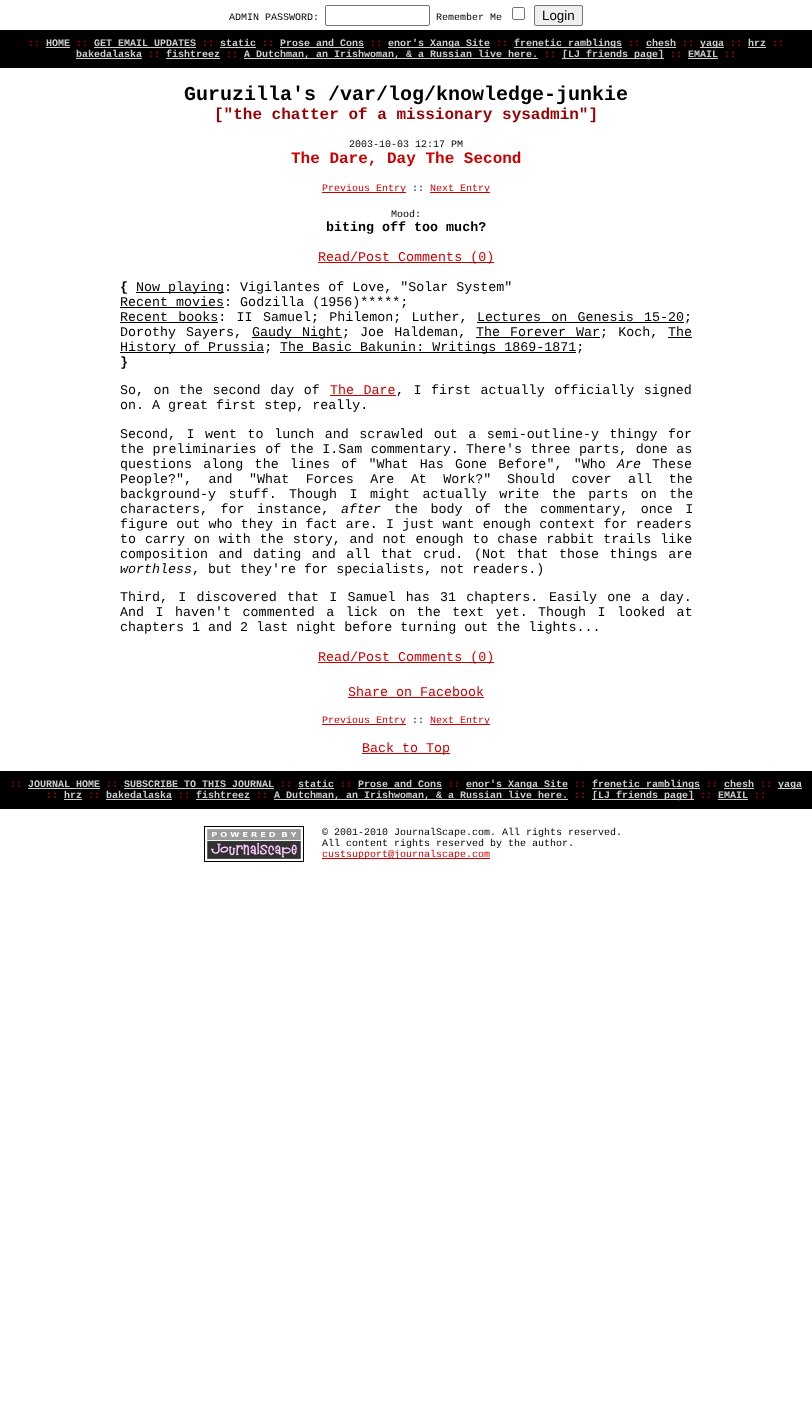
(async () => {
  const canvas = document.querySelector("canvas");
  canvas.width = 812;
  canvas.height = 1425;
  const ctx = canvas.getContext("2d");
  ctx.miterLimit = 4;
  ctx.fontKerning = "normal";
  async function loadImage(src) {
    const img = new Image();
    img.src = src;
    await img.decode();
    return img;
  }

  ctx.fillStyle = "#ffffff";
  ctx.fillRect(0, 0, 812, 1425);
  ctx.beginPath();
  ctx.roundRect(325.5, 5.5, 104, 20, 1.5);
  ctx.strokeStyle = "#767676";
  ctx.stroke();
  ctx.beginPath();
  ctx.roundRect(512.5, 7.5, 12, 12, 1.5);
  ctx.stroke();
  ctx.fillStyle = "#efefef";
  ctx.beginPath();
  ctx.roundRect(534.5, 5.5, 48, 20, 1.5);
  ctx.fill();
  ctx.stroke();
  for (const [x, y, w, h, color] of [
    [0, 30, 812, 38, "#000000"],
    [46, 47, 24, 1, "#cccccc"],
    [94, 47, 102, 1, "#cccccc"],
    [220, 47, 36, 1, "#cccccc"],
    [280, 47, 84, 1, "#cccccc"],
    [388, 47, 102, 1, "#cccccc"],
    [514, 47, 108, 1, "#cccccc"],
    [646, 47, 30, 1, "#cccccc"],
    [700, 47, 24, 1, "#cccccc"],
    [748, 47, 18, 1, "#cccccc"],
    [76, 58, 66, 1, "#cccccc"],
    [166, 58, 54, 1, "#cccccc"],
    [244, 58, 294, 1, "#cccccc"],
    [562, 58, 102, 1, "#cccccc"],
    [688, 58, 30, 1, "#cccccc"],
    [322, 192, 84, 1, "#cc0000"],
    [430, 192, 60, 1, "#cc0000"],
    [318, 262, 176, 1, "#cc0000"],
    [136, 292, 88, 1, "#000000"],
    [120, 307, 104, 1, "#000000"],
    [120, 322, 98, 1, "#000000"],
    [477, 322, 207, 1, "#000000"],
    [252, 337, 90, 1, "#000000"],
    [476, 337, 124, 1, "#000000"],
    [668, 337, 24, 1, "#000000"],
    [120, 352, 144, 1, "#000000"],
    [280, 352, 296, 1, "#000000"],
    [330, 395, 66, 1, "#cc0000"],
    [318, 662, 176, 1, "#cc0000"],
    [348, 697, 136, 1, "#cc0000"],
    [322, 724, 84, 1, "#cc0000"],
    [430, 724, 60, 1, "#cc0000"],
    [362, 753, 88, 1, "#cc0000"],
    [0, 771, 812, 38, "#000000"],
    [28, 788, 72, 1, "#cccccc"],
    [124, 788, 150, 1, "#cccccc"],
    [298, 788, 36, 1, "#cccccc"],
    [358, 788, 84, 1, "#cccccc"],
    [466, 788, 102, 1, "#cccccc"],
    [592, 788, 108, 1, "#cccccc"],
    [724, 788, 30, 1, "#cccccc"],
    [778, 788, 24, 1, "#cccccc"],
    [64, 799, 18, 1, "#cccccc"],
    [106, 799, 66, 1, "#cccccc"],
    [196, 799, 54, 1, "#cccccc"],
    [274, 799, 294, 1, "#cccccc"],
    [592, 799, 102, 1, "#cccccc"],
    [718, 799, 30, 1, "#cccccc"],
  ]) {
    ctx.fillStyle = color;
    ctx.fillRect(x, y, w, h);
  }
  ctx.drawImage(await loadImage("img/1.png"), 204, 826, 100, 36);
  ctx.fillStyle = "#cc0000";
  ctx.fillRect(322, 858, 168, 1);
  ctx.font = "10px Liberation Mono";
  ctx.fillStyle = "#000000";
  ctx.fillText("ADMIN PASSWORD:", 229, 20);
  ctx.fillText("Remember Me", 436, 20);
  ctx.font = "13.35px Liberation Sans";
  ctx.fillText("Login", 542, 20);
  ctx.font = "bold 10px Liberation Mono";
  ctx.fillStyle = "#cc0000";
  ctx.fillText("::", 28, 46);
  ctx.fillStyle = "#cccccc";
  ctx.fillText("HOME", 46, 46);
  ctx.fillStyle = "#cc0000";
  ctx.fillText("::", 76, 46);
  ctx.fillStyle = "#cccccc";
  ctx.fillText("GET EMAIL UPDATES", 94, 46);
  ctx.fillStyle = "#cc0000";
  ctx.fillText("::", 202, 46);
  ctx.fillStyle = "#cccccc";
  ctx.fillText("static", 220, 46);
  ctx.fillStyle = "#cc0000";
  ctx.fillText("::", 262, 46);
  ctx.fillStyle = "#cccccc";
  ctx.fillText("Prose and Cons", 280, 46);
  ctx.fillStyle = "#cc0000";
  ctx.fillText("::", 370, 46);
  ctx.fillStyle = "#cccccc";
  ctx.fillText("enor's Xanga Site", 388, 46);
  ctx.fillStyle = "#cc0000";
  ctx.fillText("::", 496, 46);
  ctx.fillStyle = "#cccccc";
  ctx.fillText("frenetic ramblings", 514, 46);
  ctx.fillStyle = "#cc0000";
  ctx.fillText("::", 628, 46);
  ctx.fillStyle = "#cccccc";
  ctx.fillText("chesh", 646, 46);
  ctx.fillStyle = "#cc0000";
  ctx.fillText("::", 682, 46);
  ctx.fillStyle = "#cccccc";
  ctx.fillText("yaga", 700, 46);
  ctx.fillStyle = "#cc0000";
  ctx.fillText("::", 730, 46);
  ctx.fillStyle = "#cccccc";
  ctx.fillText("hrz", 748, 46);
  ctx.fillStyle = "#cc0000";
  ctx.fillText("::", 772, 46);
  ctx.fillStyle = "#cccccc";
  ctx.fillText("bakedalaska", 76, 57);
  ctx.fillStyle = "#cc0000";
  ctx.fillText("::", 148, 57);
  ctx.fillStyle = "#cccccc";
  ctx.fillText("fishtreez", 166, 57);
  ctx.fillStyle = "#cc0000";
  ctx.fillText("::", 226, 57);
  ctx.fillStyle = "#cccccc";
  ctx.fillText("A Dutchman, an Irishwoman, & a Russian live here.", 244, 57);
  ctx.fillStyle = "#cc0000";
  ctx.fillText("::", 544, 57);
  ctx.fillStyle = "#cccccc";
  ctx.fillText("[LJ friends page]", 562, 57);
  ctx.fillStyle = "#cc0000";
  ctx.fillText("::", 670, 57);
  ctx.fillStyle = "#cccccc";
  ctx.fillText("EMAIL", 688, 57);
  ctx.fillStyle = "#cc0000";
  ctx.fillText("::", 724, 57);
  ctx.font = "bold 20px Liberation Mono";
  ctx.fillStyle = "#000000";
  ctx.fillText("Guruzilla's /var/log/knowledge-junkie", 184, 100);
  ctx.font = "bold 16px Liberation Mono";
  ctx.fillStyle = "#990000";
  ctx.fillText("[\"the chatter of a missionary sysadmin\"]", 214, 119);
  ctx.font = "10px Liberation Mono";
  ctx.fillStyle = "#000000";
  ctx.fillText("2003-10-03 12:17 PM", 349, 147);
  ctx.font = "bold 16px Liberation Mono";
  ctx.fillStyle = "#cc0000";
  ctx.fillText("The Dare, Day The Second", 291, 163);
  ctx.font = "10px Liberation Mono";
  ctx.fillText("Previous Entry", 322, 191);
  ctx.fillStyle = "#000000";
  ctx.fillText("::", 412, 191);
  ctx.fillStyle = "#cc0000";
  ctx.fillText("Next Entry", 430, 191);
  ctx.fillStyle = "#000000";
  ctx.fillText("Mood:", 391, 217);
  ctx.font = "bold 13.35px Liberation Mono";
  ctx.fillText("biting off too much?", 326, 231);
  ctx.font = "13.35px Liberation Mono";
  ctx.fillStyle = "#cc0000";
  ctx.fillText("Read/Post Comments (0)", 318, 261);
  ctx.font = "bold 13.35px Liberation Mono";
  ctx.fillStyle = "#000000";
  ctx.fillText("{", 120, 291);
  ctx.font = "13.35px Liberation Mono";
  ctx.fillText("Now playing: Vigilantes of Love, \"Solar System\"", 136, 291);
  ctx.fillText("Recent movies: Godzilla (1956)*****;", 120, 306);
  ctx.wordSpacing = "2.25px";
  ctx.fillText("Recent books: II Samuel; Philemon; Luther,", 120, 321);
  ctx.fillText("Lectures on Genesis 15-20", 477, 321);
  ctx.wordSpacing = "0px";
  ctx.fillText(";", 684, 321);
  ctx.wordSpacing = "2px";
  for (const [text, x, y] of [
    ["Dorothy Sayers,", 120, 336],
    ["Gaudy Night; Joe Haldeman,", 252, 336],
    ["The Forever War; Koch,", 476, 336],
  ]) {
    ctx.fillText(text, x, y);
  }
  ctx.wordSpacing = "0px";
  for (const [text, x, y] of [
    ["The", 668, 336],
    ["History of Prussia;", 120, 351],
    ["The Basic Bakunin: Writings 1869-1871;", 280, 351],
  ]) {
    ctx.fillText(text, x, y);
  }
  ctx.font = "bold 13.35px Liberation Mono";
  ctx.fillText("}", 120, 366);
  ctx.wordSpacing = "1.5px";
  ctx.font = "13.35px Liberation Mono";
  ctx.fillText("So, on the second day of", 120, 394);
  ctx.fillStyle = "#cc0000";
  ctx.fillText("The Dare", 330, 394);
  ctx.fillStyle = "#000000";
  ctx.fillText(", I first actually officially signed", 396, 394);
  ctx.wordSpacing = "0px";
  ctx.fillText("on. A great first step, really.", 120, 409);
  ctx.wordSpacing = "2.5px";
  ctx.fillText("Second, I went to lunch and scrawled out a semi-outline-y thingy for", 120, 438);
  ctx.wordSpacing = "0.5px";
  ctx.fillText("the preliminaries of the I.Sam commentary.", 120, 453);
  ctx.fillText("There's three parts, done as", 466, 453);
  ctx.wordSpacing = "3.25px";
  ctx.fillText("questions along the lines of \"What Has Gone Before\", \"Who", 120, 468);
  ctx.wordSpacing = "0px";
  ctx.font = "italic 13.35px Liberation Mono";
  ctx.fillText("Are", 617, 468);
  ctx.font = "13.35px Liberation Mono";
  ctx.fillText("These", 652, 468);
  ctx.wordSpacing = "8.5px";
  ctx.fillText("People?\", and \"What Forces Are At Work?\"", 120, 483);
  ctx.fillText("Should cover all the", 507, 483);
  ctx.wordSpacing = "4.5px";
  for (const [text, x, y] of [
    ["background-y stuff.", 120, 498],
    ["Though I might actually write the parts on the", 289, 498],
    ["characters, for instance,", 120, 513],
  ]) {
    ctx.fillText(text, x, y);
  }
  ctx.wordSpacing = "0px";
  ctx.font = "italic 13.35px Liberation Mono";
  ctx.fillText("after", 341, 513);
  ctx.wordSpacing = "4.5px";
  ctx.font = "13.35px Liberation Mono";
  ctx.fillText("the body of the commentary, once I", 394, 513);
  ctx.wordSpacing = "0.25px";
  ctx.fillText("figure out who they in fact are. I just want enough context for readers", 120, 528);
  ctx.wordSpacing = "0.9px";
  ctx.fillText("to carry on with the story, and not enough to chase rabbit trails like", 120, 543);
  ctx.wordSpacing = "2.5px";
  ctx.fillText("composition and dating and all that crud.", 120, 558);
  ctx.fillText("(Not that those things are", 474, 558);
  ctx.wordSpacing = "0px";
  ctx.font = "italic 13.35px Liberation Mono";
  ctx.fillText("worthless", 120, 573);
  ctx.font = "13.35px Liberation Mono";
  ctx.fillText(", but they're for specialists, not readers.)", 192, 573);
  ctx.wordSpacing = "2.25px";
  ctx.fillText("Third, I discovered that I Samuel has 31 chapters.", 120, 601);
  ctx.fillText("Easily one a day.", 549, 601);
  ctx.wordSpacing = "3.5px";
  ctx.fillText("And I haven't commented a lick on the text yet.", 120, 616);
  ctx.fillText("Though I looked at", 538, 616);
  ctx.wordSpacing = "0px";
  ctx.fillText("chapters 1 and 2 last night before turning out the lights...", 120, 631);
  ctx.fillStyle = "#cc0000";
  ctx.fillText("Read/Post Comments (0)", 318, 661);
  ctx.fillText("Share on Facebook", 348, 696);
  ctx.font = "10px Liberation Mono";
  ctx.fillText("Previous Entry", 322, 723);
  ctx.fillStyle = "#000000";
  ctx.fillText("::", 412, 723);
  ctx.fillStyle = "#cc0000";
  ctx.fillText("Next Entry", 430, 723);
  ctx.font = "13.35px Liberation Mono";
  ctx.fillText("Back to Top", 362, 752);
  ctx.font = "bold 10px Liberation Mono";
  ctx.fillText("::", 10, 787);
  ctx.fillStyle = "#cccccc";
  ctx.fillText("JOURNAL HOME", 28, 787);
  ctx.fillStyle = "#cc0000";
  ctx.fillText("::", 106, 787);
  ctx.fillStyle = "#cccccc";
  ctx.fillText("SUBSCRIBE TO THIS JOURNAL", 124, 787);
  ctx.fillStyle = "#cc0000";
  ctx.fillText("::", 280, 787);
  ctx.fillStyle = "#cccccc";
  ctx.fillText("static", 298, 787);
  ctx.fillStyle = "#cc0000";
  ctx.fillText("::", 340, 787);
  ctx.fillStyle = "#cccccc";
  ctx.fillText("Prose and Cons", 358, 787);
  ctx.fillStyle = "#cc0000";
  ctx.fillText("::", 448, 787);
  ctx.fillStyle = "#cccccc";
  ctx.fillText("enor's Xanga Site", 466, 787);
  ctx.fillStyle = "#cc0000";
  ctx.fillText("::", 574, 787);
  ctx.fillStyle = "#cccccc";
  ctx.fillText("frenetic ramblings", 592, 787);
  ctx.fillStyle = "#cc0000";
  ctx.fillText("::", 706, 787);
  ctx.fillStyle = "#cccccc";
  ctx.fillText("chesh", 724, 787);
  ctx.fillStyle = "#cc0000";
  ctx.fillText("::", 760, 787);
  ctx.fillStyle = "#cccccc";
  ctx.fillText("yaga", 778, 787);
  ctx.fillStyle = "#cc0000";
  ctx.fillText("::", 46, 798);
  ctx.fillStyle = "#cccccc";
  ctx.fillText("hrz", 64, 798);
  ctx.fillStyle = "#cc0000";
  ctx.fillText("::", 88, 798);
  ctx.fillStyle = "#cccccc";
  ctx.fillText("bakedalaska", 106, 798);
  ctx.fillStyle = "#cc0000";
  ctx.fillText("::", 178, 798);
  ctx.fillStyle = "#cccccc";
  ctx.fillText("fishtreez", 196, 798);
  ctx.fillStyle = "#cc0000";
  ctx.fillText("::", 256, 798);
  ctx.fillStyle = "#cccccc";
  ctx.fillText("A Dutchman, an Irishwoman, & a Russian live here.", 274, 798);
  ctx.fillStyle = "#cc0000";
  ctx.fillText("::", 574, 798);
  ctx.fillStyle = "#cccccc";
  ctx.fillText("[LJ friends page]", 592, 798);
  ctx.fillStyle = "#cc0000";
  ctx.fillText("::", 700, 798);
  ctx.fillStyle = "#cccccc";
  ctx.fillText("EMAIL", 718, 798);
  ctx.fillStyle = "#cc0000";
  ctx.fillText("::", 754, 798);
  ctx.font = "10px Liberation Mono";
  ctx.fillStyle = "#000000";
  ctx.fillText("© 2001-2010 JournalScape.com. All rights reserved.", 322, 835);
  ctx.fillText("All content rights reserved by the author.", 322, 846);
  ctx.fillStyle = "#cc0000";
  ctx.fillText("custsupport@journalscape.com", 322, 857);
})();
